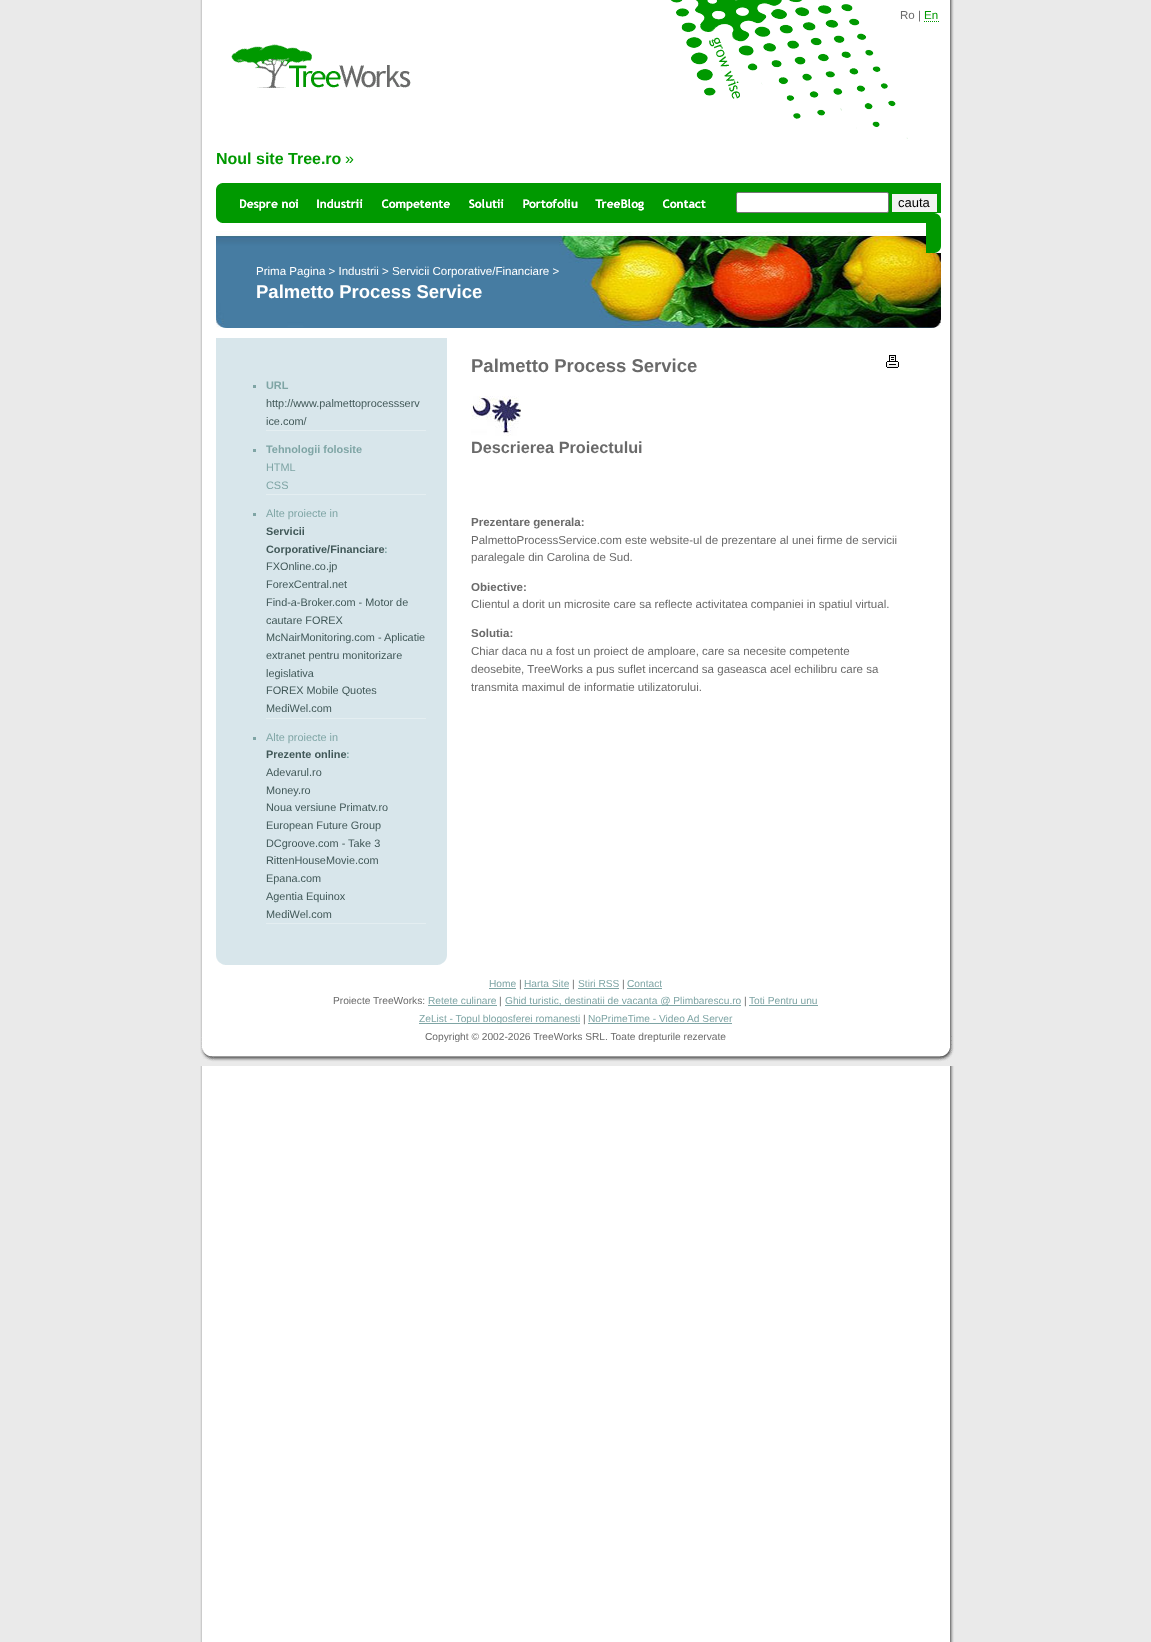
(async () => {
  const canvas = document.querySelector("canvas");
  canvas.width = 1151;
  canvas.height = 1642;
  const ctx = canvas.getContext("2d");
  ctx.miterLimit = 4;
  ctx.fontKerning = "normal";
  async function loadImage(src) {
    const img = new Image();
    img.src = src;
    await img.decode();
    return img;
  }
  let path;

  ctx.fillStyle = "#eaeaea";
  ctx.fillRect(0, 0, 1151, 1642);
  ctx.drawImage(await loadImage("img/1.png"), 200, 0, 754, 1642);
  ctx.drawImage(await loadImage("img/2.png"), 670, 0, 238, 139);
  path = new Path2D("M924 21.5H939");
  ctx.strokeStyle = "#009900";
  ctx.setLineDash([1, 1]);
  ctx.stroke(path);
  ctx.drawImage(await loadImage("img/3.png"), 231, 44, 180, 44);
  ctx.fillStyle = "#009900";
  ctx.fillRect(223, 183, 718, 40);
  ctx.drawImage(await loadImage("img/4.png"), 216, 183, 7, 40);
  ctx.drawImage(await loadImage("img/5.png"), 240, 199, 58, 12);
  ctx.drawImage(await loadImage("img/6.png"), 317, 199, 46, 9);
  ctx.drawImage(await loadImage("img/7.png"), 382, 199, 68, 12);
  ctx.drawImage(await loadImage("img/8.png"), 469, 199, 35, 9);
  ctx.drawImage(await loadImage("img/9.png"), 523, 199, 55, 9);
  ctx.drawImage(await loadImage("img/10.png"), 595, 199, 49, 12);
  ctx.drawImage(await loadImage("img/11.png"), 663, 199, 43, 9);
  ctx.fillStyle = "#ffffff";
  ctx.beginPath();
  ctx.roundRect(736.5, 192.5, 152, 20, 1.5);
  ctx.fill();
  ctx.strokeStyle = "#767676";
  ctx.setLineDash([]);
  ctx.stroke();
  ctx.fillStyle = "#f3f3f3";
  ctx.fillRect(892, 194, 45, 18);
  ctx.drawImage(await loadImage("img/13.png"), 216, 231, 725, 97);
  ctx.drawImage(await loadImage("img/12.png"), 926, 213, 15, 40);
  for (const [x, y, w, h, color] of [
    [216, 338, 231, 615, "#d8e6eb"],
    [266, 430, 160, 1, "#e4eef1"],
    [253, 385, 3, 3, "#7fa5a5"],
    [266, 494, 160, 1, "#e4eef1"],
    [253, 449, 3, 3, "#7fa5a5"],
    [266, 718, 160, 1, "#e4eef1"],
    [253, 513, 3, 3, "#7fa5a5"],
    [266, 923, 160, 1, "#e4eef1"],
    [253, 737, 3, 3, "#7fa5a5"],
  ]) {
    ctx.fillStyle = color;
    ctx.fillRect(x, y, w, h);
  }
  ctx.drawImage(await loadImage("img/14.png"), 886, 355, 13, 13);
  ctx.drawImage(await loadImage("img/15.png"), 471, 396, 50, 40);
  ctx.drawImage(await loadImage("img/16.png"), 216, 953, 231, 12);
  ctx.drawImage(await loadImage("img/17.png"), 200, 1036, 754, 30);
  for (const [x, y, w, h, color] of [
    [489, 988, 27, 1, "#7fa5a5"],
    [524, 988, 45, 1, "#7fa5a5"],
    [578, 988, 41, 1, "#7fa5a5"],
    [627, 988, 35, 1, "#7fa5a5"],
    [428, 1005, 69, 1, "#7fa5a5"],
    [505, 1005, 236, 1, "#7fa5a5"],
    [749, 1005, 69, 1, "#7fa5a5"],
    [419, 1023, 161, 1, "#7fa5a5"],
    [588, 1023, 144, 1, "#7fa5a5"],
  ]) {
    ctx.fillStyle = color;
    ctx.fillRect(x, y, w, h);
  }
  ctx.font = "11.55px Liberation Sans";
  ctx.fillStyle = "#6a6a6a";
  ctx.fillText("Ro |", 900, 19);
  ctx.fillStyle = "#009900";
  ctx.fillText("En", 924, 19);
  ctx.font = "bold 16px Liberation Sans";
  ctx.fillText("Noul site Tree.ro", 216, 164);
  ctx.font = "16px Liberation Sans";
  ctx.fillText("»", 345, 164);
  ctx.font = "13px Liberation Sans";
  ctx.fillStyle = "#000000";
  ctx.fillText("cauta", 898, 207);
  ctx.font = "11.55px Liberation Sans";
  ctx.fillStyle = "#ffffff";
  ctx.fillText("Prima Pagina > Industrii > Servicii Corporative/Financiare >", 256, 275);
  ctx.font = "bold 18.5px Liberation Sans";
  ctx.fillText("Palmetto Process Service", 256, 298);
  ctx.font = "bold 10.9px Liberation Sans";
  ctx.fillStyle = "#7fa5a5";
  ctx.fillText("URL", 266, 389);
  ctx.font = "10.9px Liberation Sans";
  ctx.fillStyle = "#415858";
  ctx.fillText("http://www.palmettoprocessserv", 266, 407);
  ctx.fillText("ice.com/", 266, 425);
  ctx.font = "bold 10.9px Liberation Sans";
  ctx.fillStyle = "#7fa5a5";
  ctx.fillText("Tehnologii folosite", 266, 453);
  ctx.font = "10.9px Liberation Sans";
  for (const [text, x, y] of [
    ["HTML", 266, 471],
    ["CSS", 266, 489],
    ["Alte proiecte in", 266, 517],
  ]) {
    ctx.fillText(text, x, y);
  }
  ctx.font = "bold 10.9px Liberation Sans";
  ctx.fillStyle = "#415858";
  ctx.fillText("Servicii", 266, 535);
  ctx.fillText("Corporative/Financiare", 266, 553);
  ctx.fillStyle = "#7fa5a5";
  ctx.fillText(":", 384, 553);
  ctx.font = "10.9px Liberation Sans";
  ctx.fillStyle = "#415858";
  for (const [text, x, y] of [
    ["FXOnline.co.jp", 266, 570],
    ["ForexCentral.net", 266, 588],
    ["Find-a-Broker.com - Motor de", 266, 606],
    ["cautare FOREX", 266, 624],
    ["McNairMonitoring.com - Aplicatie", 266, 641],
    ["extranet pentru monitorizare", 266, 659],
    ["legislativa", 266, 677],
    ["FOREX Mobile Quotes", 266, 694],
    ["MediWel.com", 266, 712],
  ]) {
    ctx.fillText(text, x, y);
  }
  ctx.fillStyle = "#7fa5a5";
  ctx.fillText("Alte proiecte in", 266, 741);
  ctx.font = "bold 10.9px Liberation Sans";
  ctx.fillStyle = "#415858";
  ctx.fillText("Prezente online", 266, 758);
  ctx.fillStyle = "#7fa5a5";
  ctx.fillText(":", 346, 758);
  ctx.font = "10.9px Liberation Sans";
  ctx.fillStyle = "#415858";
  for (const [text, x, y] of [
    ["Adevarul.ro", 266, 776],
    ["Money.ro", 266, 794],
    ["Noua versiune Primatv.ro", 266, 811],
    ["European Future Group", 266, 829],
    ["DCgroove.com - Take 3", 266, 847],
    ["RittenHouseMovie.com", 266, 864],
    ["Epana.com", 266, 882],
    ["Agentia Equinox", 266, 900],
    ["MediWel.com", 266, 918],
  ]) {
    ctx.fillText(text, x, y);
  }
  ctx.font = "bold 18.5px Liberation Sans";
  ctx.fillStyle = "#6a6a6a";
  ctx.fillText("Palmetto Process Service", 471, 372);
  ctx.font = "bold 16.25px Liberation Sans";
  ctx.fillText("Descrierea Proiectului", 471, 453);
  ctx.font = "bold 11.55px Liberation Sans";
  ctx.fillText("Prezentare generala:", 471, 526);
  ctx.font = "11.55px Liberation Sans";
  ctx.fillText("PalmettoProcessService.com este website-ul de prezentare al unei firme de servicii", 471, 544);
  ctx.fillText("paralegale din Carolina de Sud.", 471, 561);
  ctx.font = "bold 11.55px Liberation Sans";
  ctx.fillText("Obiective:", 471, 591);
  ctx.font = "11.55px Liberation Sans";
  ctx.fillText("Clientul a dorit un microsite care sa reflecte activitatea companiei in spatiul virtual.", 471, 608);
  ctx.font = "bold 11.55px Liberation Sans";
  ctx.fillText("Solutia:", 471, 637);
  ctx.font = "11.55px Liberation Sans";
  for (const [text, x, y] of [
    ["Chiar daca nu a fost un proiect de amploare, care sa necesite competente", 471, 655],
    ["deosebite, TreeWorks a pus suflet incercand sa gaseasca acel echilibru care sa", 471, 673],
    ["transmita maximul de informatie utilizatorului.", 471, 691],
  ]) {
    ctx.fillText(text, x, y);
  }
  ctx.font = "10.2px Liberation Sans";
  ctx.fillStyle = "#7fa5a5";
  ctx.fillText("Home", 489, 987);
  ctx.fillStyle = "#6a6a6a";
  ctx.fillText("|", 519, 987);
  ctx.fillStyle = "#7fa5a5";
  ctx.fillText("Harta Site", 524, 987);
  ctx.fillStyle = "#6a6a6a";
  ctx.fillText("|", 572, 987);
  ctx.fillStyle = "#7fa5a5";
  ctx.fillText("Stiri RSS", 578, 987);
  ctx.fillStyle = "#6a6a6a";
  ctx.fillText("|", 622, 987);
  ctx.fillStyle = "#7fa5a5";
  ctx.fillText("Contact", 627, 987);
  ctx.fillStyle = "#6a6a6a";
  ctx.fillText("Proiecte TreeWorks:", 333, 1004);
  ctx.fillStyle = "#7fa5a5";
  ctx.fillText("Retete culinare", 428, 1004);
  ctx.fillStyle = "#6a6a6a";
  ctx.fillText("|", 499, 1004);
  ctx.fillStyle = "#7fa5a5";
  ctx.fillText("Ghid turistic, destinatii de vacanta @ Plimbarescu.ro", 505, 1004);
  ctx.fillStyle = "#6a6a6a";
  ctx.fillText("|", 744, 1004);
  ctx.fillStyle = "#7fa5a5";
  ctx.fillText("Toti Pentru unu", 749, 1004);
  ctx.fillText("ZeList - Topul blogosferei romanesti", 419, 1022);
  ctx.fillStyle = "#6a6a6a";
  ctx.fillText("|", 583, 1022);
  ctx.fillStyle = "#7fa5a5";
  ctx.fillText("NoPrimeTime - Video Ad Server", 588, 1022);
  ctx.fillStyle = "#6a6a6a";
  ctx.fillText("Copyright © 2002-2026 TreeWorks SRL. Toate drepturile rezervate", 425, 1040);
})();
